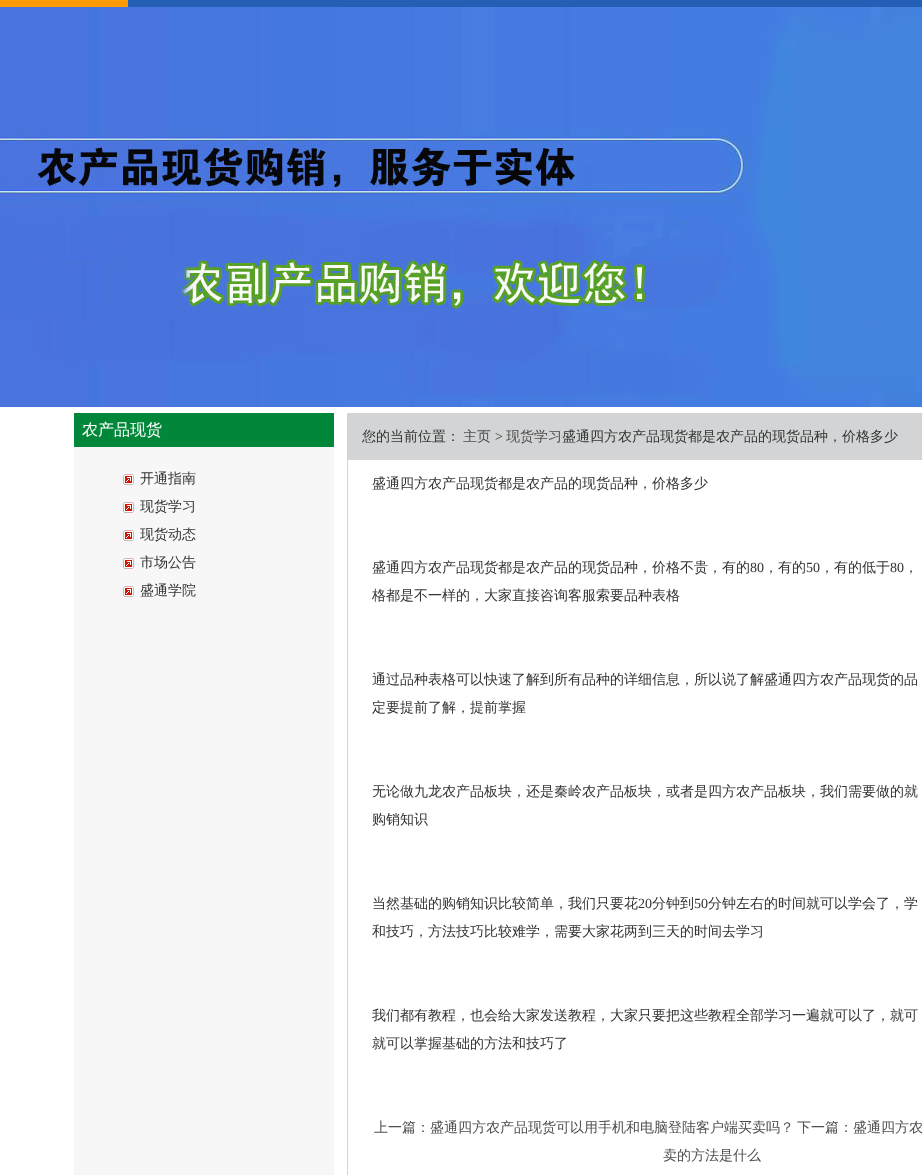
(async () => {
  const canvas = document.querySelector("canvas");
  canvas.width = 922;
  canvas.height = 1175;
  const ctx = canvas.getContext("2d");
  ctx.miterLimit = 4;
  ctx.fontKerning = "normal";
  async function loadImage(src) {
    const img = new Image();
    img.src = src;
    await img.decode();
    return img;
  }

  ctx.fillStyle = "#ffffff";
  ctx.fillRect(0, 0, 922, 1175);
  ctx.fillStyle = "#245eb5";
  ctx.fillRect(128, 0, 794, 7);
  ctx.fillStyle = "#fe9b02";
  ctx.fillRect(0, 0, 128, 7);
  ctx.drawImage(await loadImage("img/1.png"), 0, 7, 922, 400);
  ctx.fillStyle = "#f7f7f7";
  ctx.fillRect(74, 447, 260, 728);
  ctx.fillStyle = "#008739";
  ctx.fillRect(74, 413, 260, 34);
  ctx.drawImage(await loadImage("img/2.png"), 123, 474, 11, 11);
  ctx.drawImage(await loadImage("img/2.png"), 123, 502, 11, 11);
  ctx.drawImage(await loadImage("img/2.png"), 123, 530, 11, 11);
  ctx.drawImage(await loadImage("img/2.png"), 123, 558, 11, 11);
  ctx.drawImage(await loadImage("img/2.png"), 123, 586, 11, 11);
  ctx.fillStyle = "#d3d4d5";
  ctx.fillRect(347, 413, 575, 762);
  ctx.fillStyle = "#ffffff";
  ctx.fillRect(348, 460, 574, 715);
  ctx.font = "500 16px WenQuanYi Zen Hei";
  ctx.fillText("农产品现货", 82, 435);
  ctx.font = "500 14px WenQuanYi Zen Hei";
  ctx.fillStyle = "#333333";
  for (const [text, x, y] of [
    ["开通指南", 140, 483],
    ["现货学习", 140, 511],
    ["现货动态", 140, 539],
    ["市场公告", 140, 567],
    ["盛通学院", 140, 595],
    ["您的当前位置：", 362, 441],
  ]) {
    ctx.fillText(text, x, y);
  }
  ctx.fillStyle = "#4e4e4e";
  ctx.fillText("主页", 463, 441);
  ctx.font = "14px Liberation Serif";
  ctx.fillStyle = "#333333";
  ctx.fillText(">", 495, 441);
  ctx.font = "500 14px WenQuanYi Zen Hei";
  ctx.fillStyle = "#4e4e4e";
  ctx.fillText("现货学习", 506, 441);
  ctx.fillStyle = "#333333";
  for (const [text, x, y] of [
    ["盛通四方农产品现货都是农产品的现货品种，价格多少", 562, 441],
    ["盛通四方农产品现货都是农产品的现货品种，价格多少", 372, 488],
    ["盛通四方农产品现货都是农产品的现货品种，价格不贵，有的", 372, 572],
  ]) {
    ctx.fillText(text, x, y);
  }
  ctx.font = "14px Liberation Serif";
  ctx.fillText("80", 750, 572);
  ctx.font = "500 14px WenQuanYi Zen Hei";
  ctx.fillText("，有的", 764, 572);
  ctx.font = "14px Liberation Serif";
  ctx.fillText("50", 806, 572);
  ctx.font = "500 14px WenQuanYi Zen Hei";
  ctx.fillText("，有的低于", 820, 572);
  ctx.font = "14px Liberation Serif";
  ctx.fillText("80", 890, 572);
  ctx.font = "500 14px WenQuanYi Zen Hei";
  for (const [text, x, y] of [
    ["，", 904, 572],
    ["格都是不一样的，大家直接咨询客服索要品种表格", 372, 600],
    ["通过品种表格可以快速了解到所有品种的详细信息，所以说了解盛通四方农产品现货的品", 372, 684],
    ["定要提前了解，提前掌握", 372, 712],
    ["无论做九龙农产品板块，还是秦岭农产品板块，或者是四方农产品板块，我们需要做的就", 372, 796],
    ["购销知识", 372, 824],
    ["当然基础的购销知识比较简单，我们只要花", 372, 908],
  ]) {
    ctx.fillText(text, x, y);
  }
  ctx.font = "14px Liberation Serif";
  ctx.fillText("20", 638, 908);
  ctx.font = "500 14px WenQuanYi Zen Hei";
  ctx.fillText("分钟到", 652, 908);
  ctx.font = "14px Liberation Serif";
  ctx.fillText("50", 694, 908);
  ctx.font = "500 14px WenQuanYi Zen Hei";
  for (const [text, x, y] of [
    ["分钟左右的时间就可以学会了，学", 708, 908],
    ["和技巧，方法技巧比较难学，需要大家花两到三天的时间去学习", 372, 936],
    ["我们都有教程，也会给大家发送教程，大家只要把这些教程全部学习一遍就可以了，就可", 372, 1020],
    ["就可以掌握基础的方法和技巧了", 372, 1048],
  ]) {
    ctx.fillText(text, x, y);
  }
  ctx.fillStyle = "#4e4e4e";
  for (const [text, x, y] of [
    ["上一篇：盛通四方农产品现货可以用手机和电脑登陆客户端买卖吗？", 374, 1132],
    ["下一篇：盛通四方农", 797, 1132],
    ["卖的方法是什么", 663, 1160],
  ]) {
    ctx.fillText(text, x, y);
  }
})();
